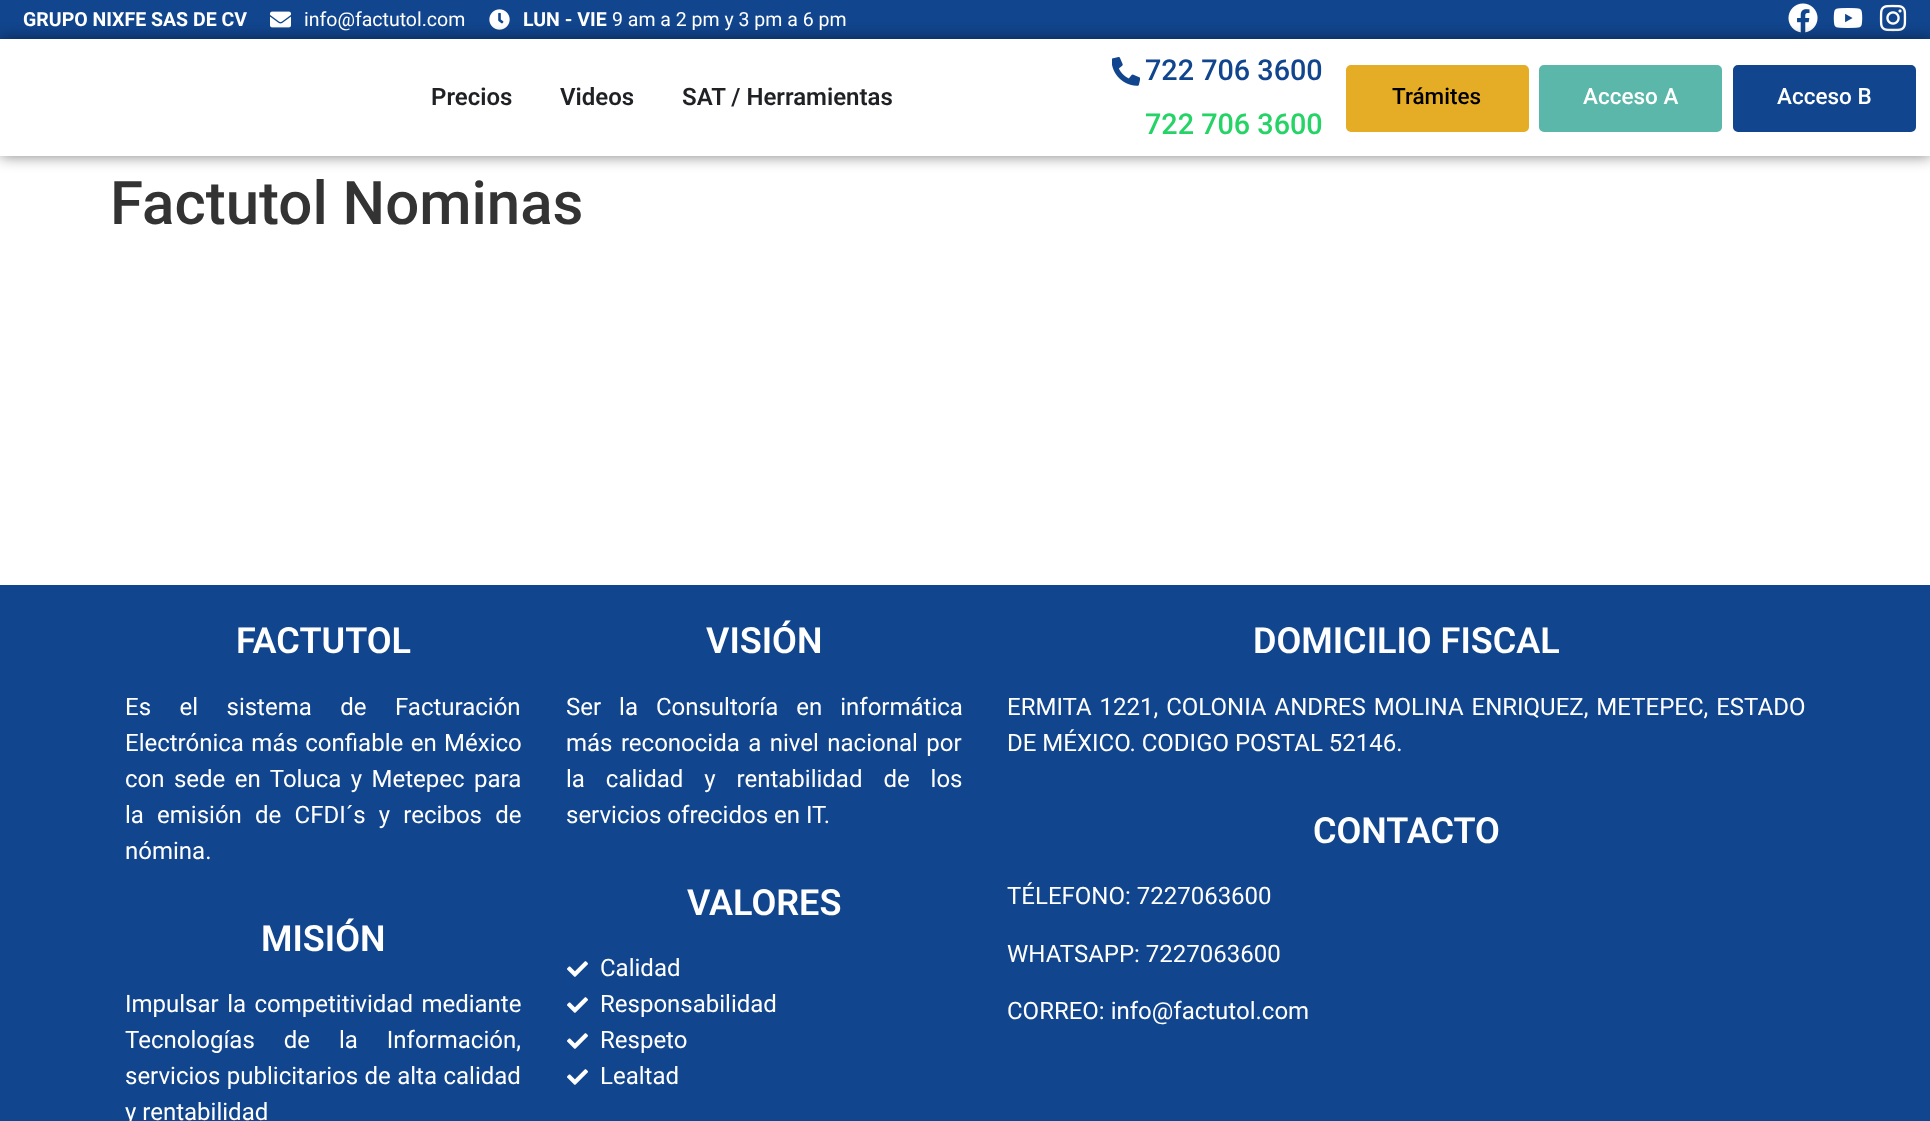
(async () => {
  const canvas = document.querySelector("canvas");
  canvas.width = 1930;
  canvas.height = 1121;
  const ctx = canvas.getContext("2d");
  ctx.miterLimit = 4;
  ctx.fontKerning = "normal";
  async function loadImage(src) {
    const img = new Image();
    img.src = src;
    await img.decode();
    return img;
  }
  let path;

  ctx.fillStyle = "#ffffff";
  ctx.fillRect(0, 0, 1930, 1121);
  ctx.fillStyle = "#11458d";
  ctx.fillRect(0, 0, 1930, 39);
  ctx.drawImage(await loadImage("img/1.png"), 270, 11, 21, 17);
  ctx.drawImage(await loadImage("img/2.png"), 489, 9, 21, 21);
  ctx.drawImage(await loadImage("img/3.png"), 1788, 3, 30, 30);
  ctx.drawImage(await loadImage("img/4.png"), 1833, 8, 30, 20);
  ctx.drawImage(await loadImage("img/5.png"), 1879, 4, 28, 28);
  ctx.save();
  path = new Path2D("M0 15H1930V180H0ZM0 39H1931V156H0Z");
  ctx.clip(path, "evenodd");
  ctx.fillStyle = "rgba(0, 0, 0, 0.5)";
  ctx.filter = "blur(7.5px)";
  ctx.beginPath();
  ctx.rect(0, 39, 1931, 117);
  ctx.fill();
  ctx.filter = "none";
  ctx.restore();
  ctx.drawImage(await loadImage("img/6.png"), 1112, 57, 28, 29);
  ctx.fillStyle = "#e5ad25";
  ctx.beginPath();
  ctx.roundRect(1348.5, 67.5, 178, 62, 2.5);
  ctx.fill();
  ctx.strokeStyle = "#e5ad25";
  ctx.lineWidth = 5;
  ctx.stroke();
  ctx.fillStyle = "#5bb7a9";
  ctx.beginPath();
  ctx.roundRect(1541.5, 67.5, 178, 62, 2.5);
  ctx.fill();
  ctx.strokeStyle = "#5bb7a9";
  ctx.stroke();
  ctx.fillStyle = "#11458d";
  ctx.beginPath();
  ctx.roundRect(1735.5, 67.5, 178, 62, 2.5);
  ctx.fill();
  ctx.strokeStyle = "#11458d";
  ctx.stroke();
  ctx.fillRect(0, 585, 1930, 536);
  ctx.drawImage(await loadImage("img/7.png"), 567, 961, 21, 16);
  ctx.drawImage(await loadImage("img/7.png"), 567, 997, 21, 16);
  ctx.drawImage(await loadImage("img/7.png"), 567, 1033, 21, 16);
  ctx.drawImage(await loadImage("img/7.png"), 567, 1069, 21, 16);
  ctx.font = "bold 19.5px Roboto";
  ctx.fillStyle = "#ffffff";
  ctx.fillText("GRUPO NIXFE SAS DE CV", 23, 26);
  ctx.font = "19.5px Roboto";
  ctx.fillText("info@factutol.com", 304, 26);
  ctx.font = "bold 19.5px Roboto";
  ctx.fillText("LUN - VIE", 523, 26);
  ctx.font = "19.5px Roboto";
  ctx.fillText("9 am a 2 pm y 3 pm a 6 pm", 612, 26);
  ctx.font = "600 24px Roboto";
  ctx.fillStyle = "#1f2124";
  for (const [text, x, y] of [
    ["Precios", 431, 105],
    ["Videos", 560, 105],
    ["SAT / Herramientas", 682, 105],
  ]) {
    ctx.fillText(text, x, y);
  }
  ctx.font = "500 28.75px Roboto";
  ctx.fillStyle = "#11458d";
  ctx.fillText("722 706 3600", 1145, 80);
  ctx.fillStyle = "#25d366";
  ctx.fillText("722 706 3600", 1145, 134);
  ctx.font = "500 22.5px Roboto";
  ctx.fillStyle = "#000000";
  ctx.fillText("Trámites", 1392, 104);
  ctx.fillStyle = "#ffffff";
  ctx.fillText("Acceso A", 1583, 104);
  ctx.fillText("Acceso B", 1777, 104);
  ctx.font = "500 60px Roboto";
  ctx.fillStyle = "#333333";
  ctx.fillText("Factutol Nominas", 110, 224);
  ctx.font = "600 36px Roboto";
  ctx.fillStyle = "#ffffff";
  ctx.fillText("FACTUTOL", 236, 653);
  ctx.wordSpacing = "22.5px";
  ctx.font = "24px Roboto";
  ctx.fillText("Es el sistema de Facturación", 125, 715);
  ctx.wordSpacing = "1.5px";
  ctx.fillText("Electrónica más confiable en México", 125, 751);
  ctx.wordSpacing = "3.5px";
  ctx.fillText("con sede en Toluca y Metepec para", 125, 787);
  ctx.wordSpacing = "7.25px";
  ctx.fillText("la emisión de CFDI´s y recibos de", 125, 823);
  ctx.wordSpacing = "0px";
  ctx.fillText("nómina.", 125, 859);
  ctx.font = "600 36px Roboto";
  ctx.fillText("MISIÓN", 261, 951);
  ctx.wordSpacing = "2.5px";
  ctx.font = "24px Roboto";
  ctx.fillText("Impulsar la competitividad mediante", 125, 1012);
  ctx.wordSpacing = "23px";
  ctx.fillText("Tecnologías de la Información,", 125, 1048);
  ctx.wordSpacing = "0.5px";
  ctx.fillText("servicios publicitarios de alta calidad", 125, 1084);
  ctx.wordSpacing = "0px";
  ctx.fillText("y rentabilidad", 125, 1120);
  ctx.font = "600 36px Roboto";
  ctx.fillText("VISIÓN", 706, 653);
  ctx.wordSpacing = "12px";
  ctx.font = "24px Roboto";
  ctx.fillText("Ser la Consultoría en informática", 566, 715);
  ctx.wordSpacing = "2.5px";
  ctx.fillText("más reconocida a nivel nacional por", 566, 751);
  ctx.wordSpacing = "15px";
  ctx.fillText("la calidad y rentabilidad de los", 566, 787);
  ctx.wordSpacing = "0px";
  ctx.fillText("servicios ofrecidos en IT.", 566, 823);
  ctx.font = "600 36px Roboto";
  ctx.fillText("VALORES", 687, 915);
  ctx.font = "24px Roboto";
  for (const [text, x, y] of [
    ["Calidad", 600, 976],
    ["Responsabilidad", 600, 1012],
    ["Respeto", 600, 1048],
    ["Lealtad", 600, 1084],
  ]) {
    ctx.fillText(text, x, y);
  }
  ctx.font = "600 36px Roboto";
  ctx.fillText("DOMICILIO FISCAL", 1253, 653);
  ctx.wordSpacing = "2px";
  ctx.font = "24px Roboto";
  ctx.fillText("ERMITA 1221, COLONIA ANDRES MOLINA ENRIQUEZ, METEPEC, ESTADO", 1007, 715);
  ctx.wordSpacing = "0px";
  ctx.fillText("DE MÉXICO. CODIGO POSTAL 52146.", 1007, 751);
  ctx.font = "600 36px Roboto";
  ctx.fillText("CONTACTO", 1313, 843);
  ctx.font = "24px Roboto";
  for (const [text, x, y] of [
    ["TÉLEFONO: 7227063600", 1007, 904],
    ["WHATSAPP: 7227063600", 1007, 962],
    ["CORREO: info@factutol.com", 1007, 1019],
  ]) {
    ctx.fillText(text, x, y);
  }
})();
